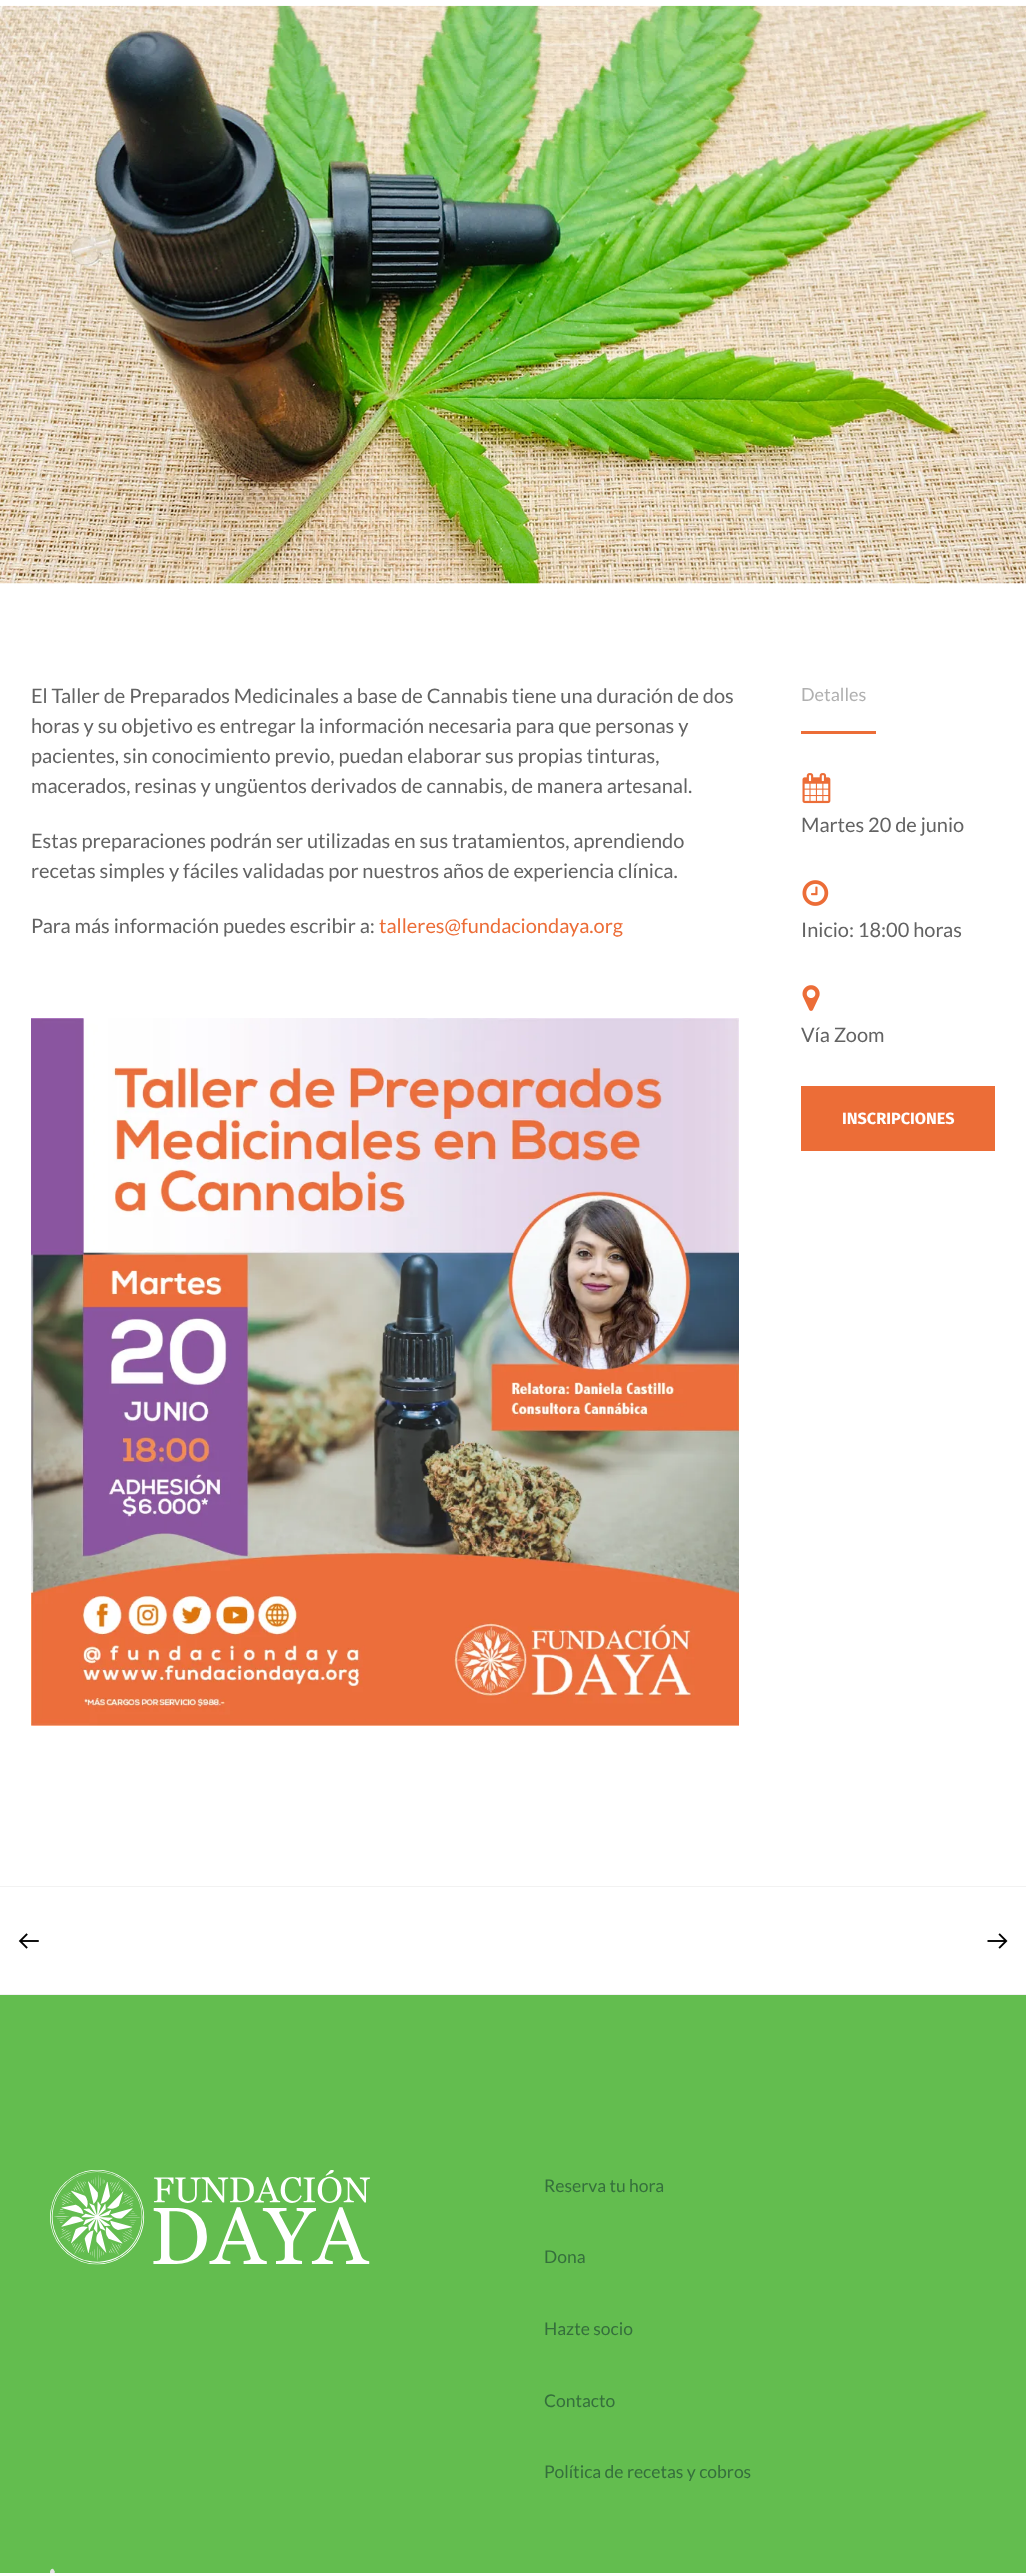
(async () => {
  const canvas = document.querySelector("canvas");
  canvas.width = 1026;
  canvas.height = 2573;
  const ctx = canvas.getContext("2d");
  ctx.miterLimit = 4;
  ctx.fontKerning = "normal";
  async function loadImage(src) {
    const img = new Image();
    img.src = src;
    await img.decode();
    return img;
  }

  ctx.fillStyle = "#63bd4f";
  ctx.fillRect(0, 0, 1026, 2573);
  ctx.fillStyle = "#ffffff";
  ctx.fillRect(0, 0, 1026, 1994);
  ctx.drawImage(await loadImage("img/1.png"), 0, 5, 1026, 579);
  ctx.drawImage(await loadImage("img/2.png"), 31, 1018, 708, 708);
  ctx.fillStyle = "#ec6d37";
  ctx.fillRect(801, 731, 75, 3);
  ctx.drawImage(await loadImage("img/3.png"), 802, 773, 29, 31);
  ctx.drawImage(await loadImage("img/4.png"), 802, 880, 27, 26);
  ctx.drawImage(await loadImage("img/5.png"), 802, 985, 18, 26);
  for (const [x, y, w, h, color] of [
    [801, 1086, 194, 65, "#ec6d37"],
    [0, 1886, 1026, 1, "#f2f2f2"],
    [0, 1994, 1026, 1, "#f2f2f2"],
  ]) {
    ctx.fillStyle = color;
    ctx.fillRect(x, y, w, h);
  }
  ctx.drawImage(await loadImage("img/6.png"), 18, 1933, 21, 16);
  ctx.drawImage(await loadImage("img/7.png"), 987, 1933, 21, 16);
  ctx.drawImage(await loadImage("img/8.png"), 50, 2170, 320, 95);
  ctx.drawImage(await loadImage("img/9.png"), 50, 2568, 5, 5);
  ctx.font = "20px Lato";
  ctx.fillStyle = "#636363";
  for (const [text, x, y] of [
    ["El Taller de Preparados Medicinales a base de Cannabis tiene una duración de dos", 31, 703],
    ["horas y su objetivo es entregar la información necesaria para que personas y", 31, 733],
    ["pacientes, sin conocimiento previo, puedan elaborar sus propias tinturas,", 31, 763],
    ["macerados, resinas y ungüentos derivados de cannabis, de manera artesanal.", 31, 793],
    ["Estas preparaciones podrán ser utilizadas en sus tratamientos, aprendiendo", 31, 848],
    ["recetas simples y fáciles validadas por nuestros años de experiencia clínica.", 31, 878],
    ["Para más información puedes escribir a:", 31, 933],
  ]) {
    ctx.fillText(text, x, y);
  }
  ctx.fillStyle = "#ec6d37";
  ctx.fillText("talleres@fundaciondaya.org", 379, 933);
  ctx.font = "18px Lato";
  ctx.fillStyle = "#b0b0b0";
  ctx.fillText("Detalles", 801, 701);
  ctx.font = "20px Lato";
  ctx.fillStyle = "#636363";
  for (const [text, x, y] of [
    ["Martes 20 de junio", 801, 832],
    ["Inicio: 18:00 horas", 801, 937],
    ["Vía Zoom", 801, 1042],
  ]) {
    ctx.fillText(text, x, y);
  }
  ctx.font = "bold 16.25px Fira Sans";
  ctx.fillStyle = "#ffffff";
  ctx.fillText("INSCRIPCIONES", 842, 1124);
  ctx.font = "17.5px Lato";
  ctx.fillStyle = "#356f3c";
  for (const [text, x, y] of [
    ["Reserva tu hora", 544, 2192],
    ["Dona", 544, 2263],
    ["Hazte socio", 544, 2335],
    ["Contacto", 544, 2407],
    ["Política de recetas y cobros", 544, 2478],
  ]) {
    ctx.fillText(text, x, y);
  }
})();
